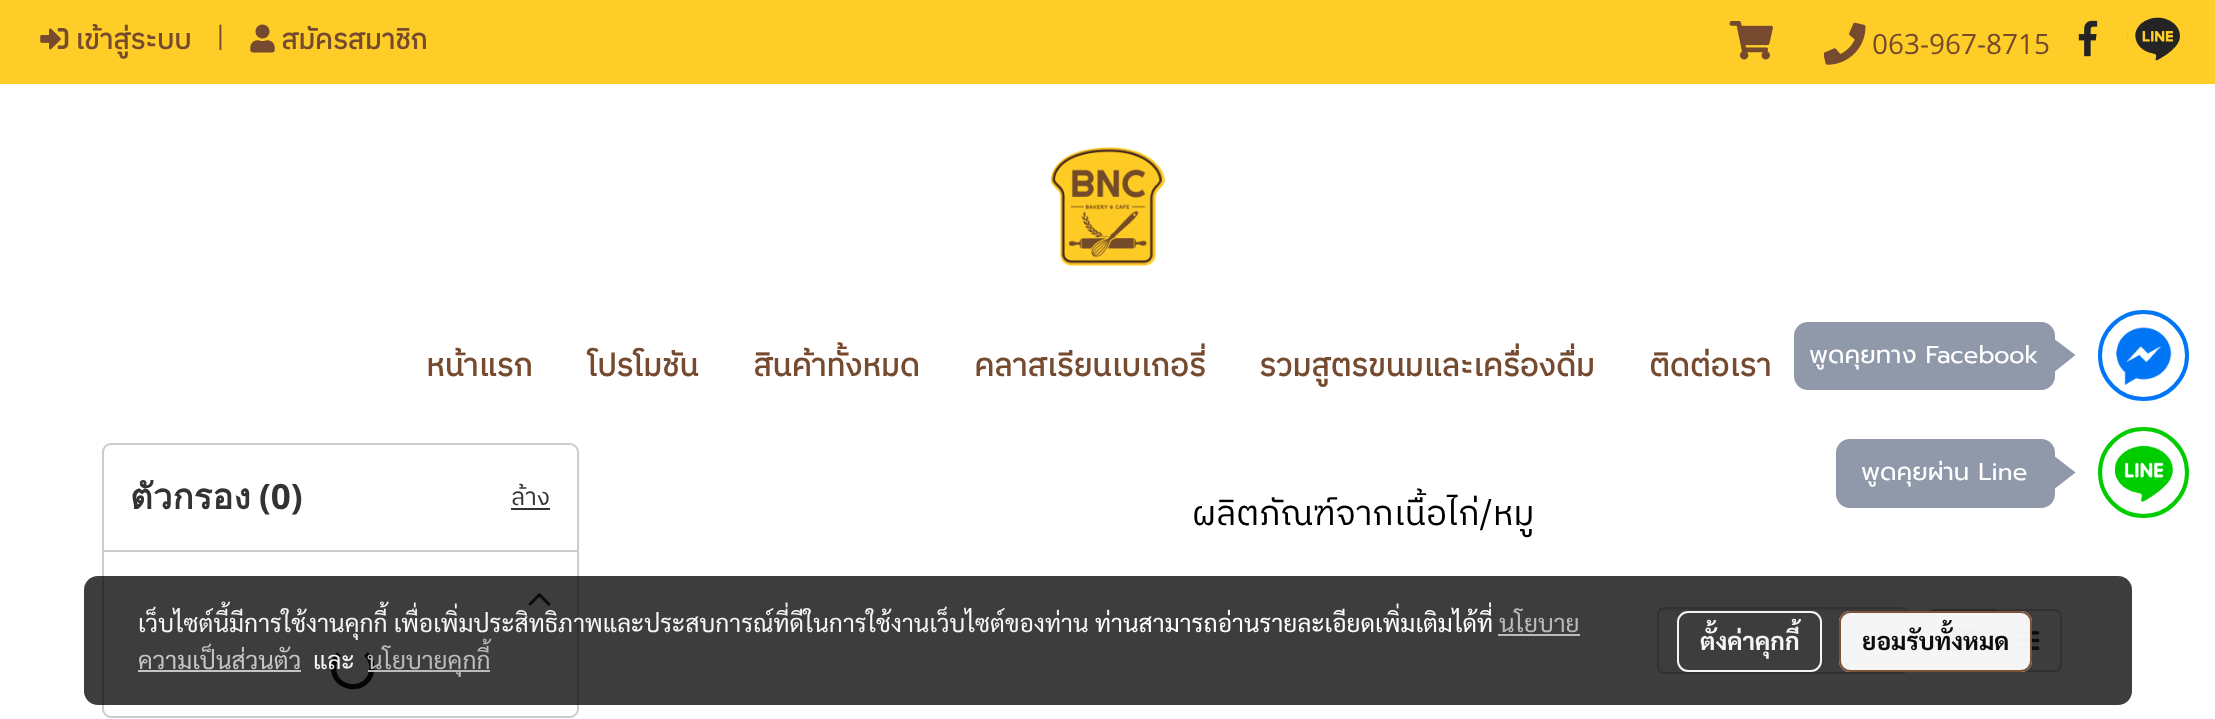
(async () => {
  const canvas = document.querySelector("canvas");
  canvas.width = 2215;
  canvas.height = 719;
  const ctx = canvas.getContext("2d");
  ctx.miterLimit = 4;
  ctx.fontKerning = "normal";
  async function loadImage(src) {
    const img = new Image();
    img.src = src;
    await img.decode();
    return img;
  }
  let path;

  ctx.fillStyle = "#ffffff";
  ctx.fillRect(0, 0, 2215, 719);
  ctx.fillStyle = "#ffcd28";
  ctx.fillRect(0, 0, 2215, 84);
  ctx.drawImage(await loadImage("img/1.png"), 40, 28, 29, 22);
  ctx.drawImage(await loadImage("img/2.png"), 250, 24, 25, 29);
  ctx.drawImage(await loadImage("img/3.png"), 1729, 21, 44, 39);
  ctx.drawImage(await loadImage("img/4.png"), 1824, 22, 42, 43);
  ctx.drawImage(await loadImage("img/5.png"), 2078, 20, 20, 37);
  ctx.drawImage(await loadImage("img/6.png"), 2127, 17, 62, 44);
  ctx.drawImage(await loadImage("img/7.png"), 1050, 147, 116, 119);
  ctx.beginPath();
  ctx.roundRect(103, 444, 475, 273, 8);
  ctx.strokeStyle = "#cccccc";
  ctx.lineWidth = 2;
  ctx.stroke();
  ctx.fillStyle = "#333333";
  ctx.fillRect(511, 508, 39, 2);
  ctx.fillStyle = "#cccccc";
  ctx.fillRect(103, 550, 475, 2);
  ctx.drawImage(await loadImage("img/8.png"), 528, 593, 23, 13);
  path = new Path2D("M366 654C370.5 658.5 373 665 371.5 671.5C367 694 333.5 690.5 333.5 667.5C333.5 662.5 335.5 657.5 339 654");
  ctx.strokeStyle = "#111111";
  ctx.lineWidth = 5.2;
  ctx.stroke(path);
  ctx.fillStyle = "#ececec";
  path = new Path2D("M1664 611H1902C1905 611 1908 613 1908 616C1908 613 1908 610 1904 609H1663C1659 610 1659 613 1659 616C1659 613 1661 611 1664 611Z");
  ctx.fill(path);
  ctx.beginPath();
  ctx.roundRect(1658, 608, 250, 65, 6);
  ctx.strokeStyle = "#cdced2";
  ctx.lineWidth = 2;
  ctx.stroke();
  path = new Path2D("M1886 637L1893 644L1900 637");
  ctx.strokeStyle = "#212121";
  ctx.lineWidth = 3.5;
  ctx.stroke(path);
  ctx.beginPath();
  ctx.roundRect(1996, 610, 65, 61, [0, 6, 6, 0]);
  ctx.strokeStyle = "#cccccc";
  ctx.lineWidth = 2;
  ctx.stroke();
  ctx.fillStyle = "#e6e6e6";
  ctx.beginPath();
  ctx.roundRect(1928, 610, 68, 61, [6, 0, 0, 6]);
  ctx.fill();
  ctx.strokeStyle = "#adadad";
  ctx.stroke();
  ctx.drawImage(await loadImage("img/9.png"), 1949, 629, 25, 23);
  ctx.drawImage(await loadImage("img/10.png"), 2017, 631, 23, 19);
  ctx.beginPath();
  ctx.arc(2143.5, 355.5, 43.5, 0, Math.PI * 2);
  ctx.strokeStyle = "#0077f6";
  ctx.lineWidth = 4;
  ctx.stroke();
  ctx.fillStyle = "#9099aa";
  ctx.beginPath();
  ctx.roundRect(1794, 322, 261, 68, 14);
  ctx.fill();
  path = new Path2D("M2053 373V338L2075.5 355Z");
  ctx.fill(path);
  ctx.drawImage(await loadImage("img/11.png"), 2116, 327, 56, 59);
  ctx.beginPath();
  ctx.arc(2143.5, 472.5, 43.5, 0, Math.PI * 2);
  ctx.strokeStyle = "#00cd00";
  ctx.stroke();
  ctx.beginPath();
  ctx.roundRect(1836, 439, 219, 69, 14);
  ctx.fill();
  path = new Path2D("M2053 490V455L2075.5 472.5Z");
  ctx.fill(path);
  ctx.drawImage(await loadImage("img/12.png"), 2115, 445, 58, 57);
  ctx.fillStyle = "rgba(0, 0, 0, 0.76)";
  ctx.beginPath();
  ctx.roundRect(84, 576, 2048, 129, 14);
  ctx.fill();
  for (const [x, y, w, h, color] of [
    [1498, 634, 82, 2, "rgba(194, 194, 194, 0.95)"],
    [138, 670, 163, 2, "#c5c5c5"],
    [368, 670, 122, 2, "rgba(194, 194, 194, 0.95)"],
  ]) {
    ctx.fillStyle = color;
    ctx.fillRect(x, y, w, h);
  }
  ctx.beginPath();
  ctx.roundRect(1678, 612, 143, 59, 10);
  ctx.strokeStyle = "rgba(255, 255, 255, 0.95)";
  ctx.lineWidth = 2;
  ctx.stroke();
  ctx.fillStyle = "rgba(255, 255, 255, 0.95)";
  ctx.beginPath();
  ctx.roundRect(1839, 611, 193, 61, 11);
  ctx.fill();
  ctx.beginPath();
  ctx.roundRect(1840, 612, 191, 59, 10);
  ctx.strokeStyle = "rgba(117, 74, 46, 0.95)";
  ctx.stroke();
  ctx.font = "bold 28px IBM Plex Sans Thai";
  ctx.fillStyle = "#754a2e";
  ctx.fillText("เข้าสู่ระบบ", 75, 49);
  ctx.font = "28px IBM Plex Sans Thai";
  ctx.fillText("|", 216, 46);
  ctx.font = "bold 28px IBM Plex Sans Thai";
  ctx.fillText("สมัครสมาชิก", 281, 49);
  ctx.font = "28px Open Sans";
  ctx.fillText("063-967-8715", 1872, 54);
  ctx.font = "bold 31.5px IBM Plex Sans Thai";
  for (const [text, x, y] of [
    ["หน้าแรก", 426, 376],
    ["โปรโมชัน", 587, 376],
    ["สินค้าทั้งหมด", 753, 376],
    ["คลาสเรียนเบเกอรี่", 974, 376],
    ["รวมสูตรขนมและเครื่องดื่ม", 1259, 376],
    ["ติดต่อเรา", 1649, 376],
  ]) {
    ctx.fillText(text, x, y);
  }
  ctx.font = "bold 35px Loma";
  ctx.fillStyle = "#333333";
  ctx.fillText("ตัวกรอง", 130, 509);
  ctx.font = "bold 35px Open Sans";
  ctx.fillText("(0)", 259, 509);
  ctx.font = "24.5px IBM Plex Sans Thai";
  ctx.fillText("ล้าง", 511, 505);
  ctx.font = "35px IBM Plex Sans Thai";
  ctx.fillStyle = "#000000";
  ctx.fillText("ผลิตภัณฑ์จากเนื้อไก่/หมู", 1192, 525);
  ctx.font = "24.5px Prompt";
  ctx.fillStyle = "#ffffff";
  ctx.fillText("พูดคุยทาง Facebook", 1809, 363);
  ctx.fillText("พูดคุยผ่าน Line", 1861, 480);
  ctx.font = "24.5px Sarabun";
  ctx.fillStyle = "#f5f5f5";
  ctx.fillText("เว็บไซต์นี้มีการใช้งานคุกกี้ เพื่อเพิ่มประสิทธิภาพและประสบการณ์ที่ดีในการใช้งานเว็บไซต์ของท่าน", 138, 632);
  ctx.fillStyle = "#ffffff";
  ctx.fillText("ท่านสามารถอ่านรายละเอียดเพิ่มเติมได้ที่", 1095, 632);
  ctx.fillStyle = "#bbbbbb";
  ctx.fillText("นโยบาย", 1499, 632);
  ctx.fillStyle = "#c5c5c5";
  ctx.fillText("ความเป็นส่วนตัว", 138, 669);
  ctx.fillStyle = "#f5f5f5";
  ctx.fillText("และ", 313, 669);
  ctx.fillStyle = "#bbbbbb";
  ctx.fillText("นโยบายคุกกี้", 367, 669);
  ctx.font = "bold 24.5px Sarabun";
  ctx.fillStyle = "#f5f5f5";
  ctx.fillText("ตั้งค่าคุกกี้", 1700, 650);
  ctx.fillStyle = "#0c0c0c";
  ctx.fillText("ยอมรับทั้งหมด", 1862, 650);
})();
